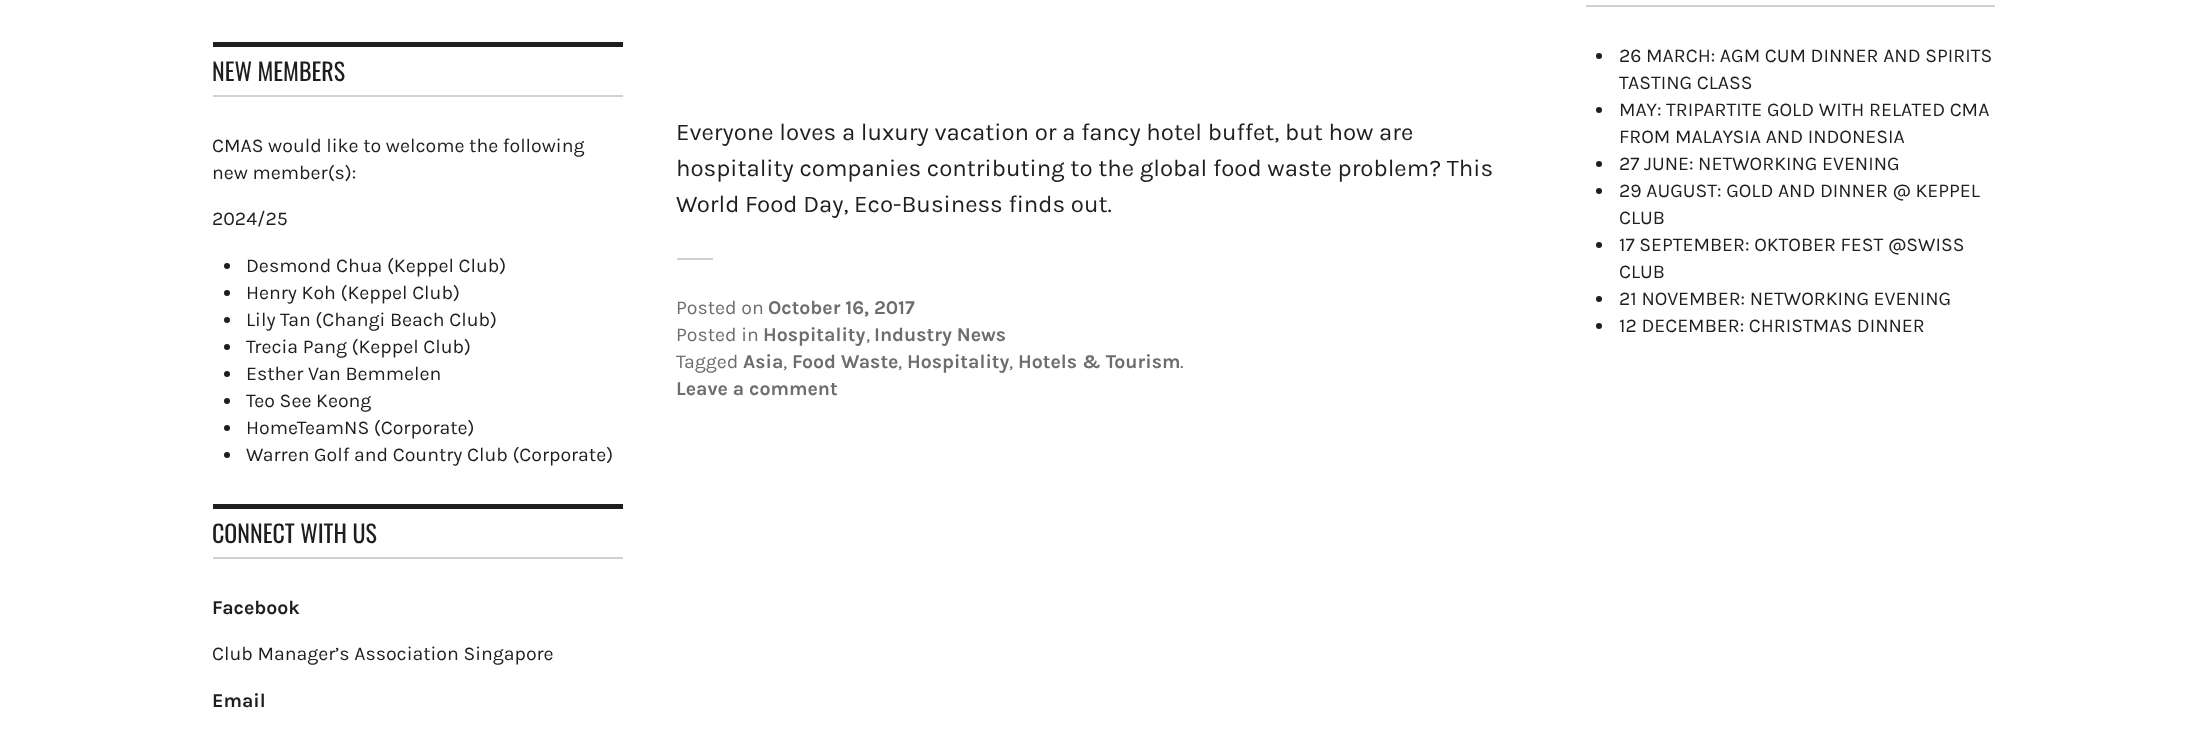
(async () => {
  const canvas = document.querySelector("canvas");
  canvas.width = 2206;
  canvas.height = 739;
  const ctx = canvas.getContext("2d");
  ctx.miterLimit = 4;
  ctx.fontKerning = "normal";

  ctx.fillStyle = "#ffffff";
  ctx.fillRect(0, 0, 2206, 739);
  ctx.fillStyle = "#1e1e1e";
  ctx.fillRect(213, 42, 410, 5);
  ctx.fillStyle = "#d1d1d1";
  ctx.fillRect(213, 95, 410, 2);
  ctx.fillStyle = "#1e1e1e";
  ctx.beginPath();
  ctx.arc(227, 266, 3, 0, Math.PI * 2);
  ctx.fill();
  ctx.beginPath();
  ctx.arc(227, 293, 3, 0, Math.PI * 2);
  ctx.fill();
  ctx.beginPath();
  ctx.arc(227, 320, 3, 0, Math.PI * 2);
  ctx.fill();
  ctx.beginPath();
  ctx.arc(227, 347, 3, 0, Math.PI * 2);
  ctx.fill();
  ctx.beginPath();
  ctx.arc(227, 374, 3, 0, Math.PI * 2);
  ctx.fill();
  ctx.beginPath();
  ctx.arc(227, 401, 3, 0, Math.PI * 2);
  ctx.fill();
  ctx.beginPath();
  ctx.arc(227, 428, 3, 0, Math.PI * 2);
  ctx.fill();
  ctx.beginPath();
  ctx.arc(227, 455, 3, 0, Math.PI * 2);
  ctx.fill();
  for (const [x, y, w, h, color] of [
    [213, 504, 410, 5, "#1e1e1e"],
    [213, 557, 410, 2, "#d1d1d1"],
    [1586, 5, 409, 2, "#d1d1d1"],
  ]) {
    ctx.fillStyle = color;
    ctx.fillRect(x, y, w, h);
  }
  ctx.fillStyle = "#1e1e1e";
  ctx.beginPath();
  ctx.arc(1599, 56, 3, 0, Math.PI * 2);
  ctx.fill();
  ctx.beginPath();
  ctx.arc(1599, 110, 3, 0, Math.PI * 2);
  ctx.fill();
  ctx.beginPath();
  ctx.arc(1599, 164, 3, 0, Math.PI * 2);
  ctx.fill();
  ctx.beginPath();
  ctx.arc(1599, 191, 3, 0, Math.PI * 2);
  ctx.fill();
  ctx.beginPath();
  ctx.arc(1599, 245, 3, 0, Math.PI * 2);
  ctx.fill();
  ctx.beginPath();
  ctx.arc(1599, 299, 3, 0, Math.PI * 2);
  ctx.fill();
  ctx.beginPath();
  ctx.arc(1599, 326, 3, 0, Math.PI * 2);
  ctx.fill();
  ctx.fillStyle = "#d1d1d1";
  ctx.fillRect(677, 258, 36, 2);
  ctx.font = "24px Oswald";
  ctx.fillStyle = "#1e1e1e";
  ctx.fillText("NEW MEMBERS", 212, 81);
  ctx.font = "19.5px Karla";
  for (const [text, x, y] of [
    ["CMAS would like to welcome the following", 212, 152],
    ["new member(s):", 212, 179],
    ["2024/25", 212, 225],
    ["Desmond Chua (Keppel Club)", 246, 272],
    ["Henry Koh (Keppel Club)", 246, 299],
    ["Lily Tan (Changi Beach Club)", 246, 326],
    ["Trecia Pang (Keppel Club)", 246, 353],
    ["Esther Van Bemmelen", 246, 380],
    ["Teo See Keong", 246, 407],
    ["HomeTeamNS (Corporate)", 246, 434],
    ["Warren Golf and Country Club (Corporate)", 246, 461],
  ]) {
    ctx.fillText(text, x, y);
  }
  ctx.font = "24px Oswald";
  ctx.fillText("CONNECT WITH US", 212, 543);
  ctx.font = "bold 19.5px Karla";
  ctx.fillText("Facebook", 212, 614);
  ctx.font = "19.5px Karla";
  ctx.fillText("Club Manager’s Association Singapore", 212, 660);
  ctx.font = "bold 19.5px Karla";
  ctx.fillText("Email", 212, 707);
  ctx.font = "19.5px Karla";
  for (const [text, x, y] of [
    ["26 MARCH: AGM CUM DINNER AND SPIRITS", 1619, 62],
    ["TASTING CLASS", 1619, 89],
    ["MAY: TRIPARTITE GOLD WITH RELATED CMA", 1619, 116],
    ["FROM MALAYSIA AND INDONESIA", 1619, 143],
    ["27 JUNE: NETWORKING EVENING", 1619, 170],
    ["29 AUGUST: GOLD AND DINNER @ KEPPEL", 1619, 197],
    ["CLUB", 1619, 224],
    ["17 SEPTEMBER: OKTOBER FEST @SWISS", 1619, 251],
    ["CLUB", 1619, 278],
    ["21 NOVEMBER: NETWORKING EVENING", 1619, 305],
    ["12 DECEMBER: CHRISTMAS DINNER", 1619, 332],
  ]) {
    ctx.fillText(text, x, y);
  }
  ctx.font = "24px Karla";
  for (const [text, x, y] of [
    ["Everyone loves a luxury vacation or a fancy hotel buffet, but how are", 676, 140],
    ["hospitality companies contributing to the global food waste problem? This", 676, 176],
    ["World Food Day, Eco-Business finds out.", 676, 212],
  ]) {
    ctx.fillText(text, x, y);
  }
  ctx.font = "19.5px Karla";
  ctx.fillStyle = "#6d6d6d";
  ctx.fillText("Posted on", 676, 314);
  ctx.font = "bold 19.5px Karla";
  ctx.fillText("October 16, 2017", 768, 314);
  ctx.font = "19.5px Karla";
  ctx.fillText("Posted in", 676, 341);
  ctx.font = "bold 19.5px Karla";
  ctx.fillText("Hospitality", 763, 341);
  ctx.font = "19.5px Karla";
  ctx.fillText(",", 866, 341);
  ctx.font = "bold 19.5px Karla";
  ctx.fillText("Industry News", 874, 341);
  ctx.font = "19.5px Karla";
  ctx.fillText("Tagged", 676, 368);
  ctx.font = "bold 19.5px Karla";
  ctx.fillText("Asia", 743, 368);
  ctx.font = "19.5px Karla";
  ctx.fillText(",", 783, 368);
  ctx.font = "bold 19.5px Karla";
  ctx.fillText("Food Waste", 792, 368);
  ctx.font = "19.5px Karla";
  ctx.fillText(",", 898, 368);
  ctx.font = "bold 19.5px Karla";
  ctx.fillText("Hospitality", 907, 368);
  ctx.font = "19.5px Karla";
  ctx.fillText(",", 1009, 368);
  ctx.font = "bold 19.5px Karla";
  ctx.fillText("Hotels & Tourism", 1018, 368);
  ctx.font = "19.5px Karla";
  ctx.fillText(".", 1180, 368);
  ctx.font = "bold 19.5px Karla";
  ctx.fillText("Leave a comment", 676, 395);
})();
